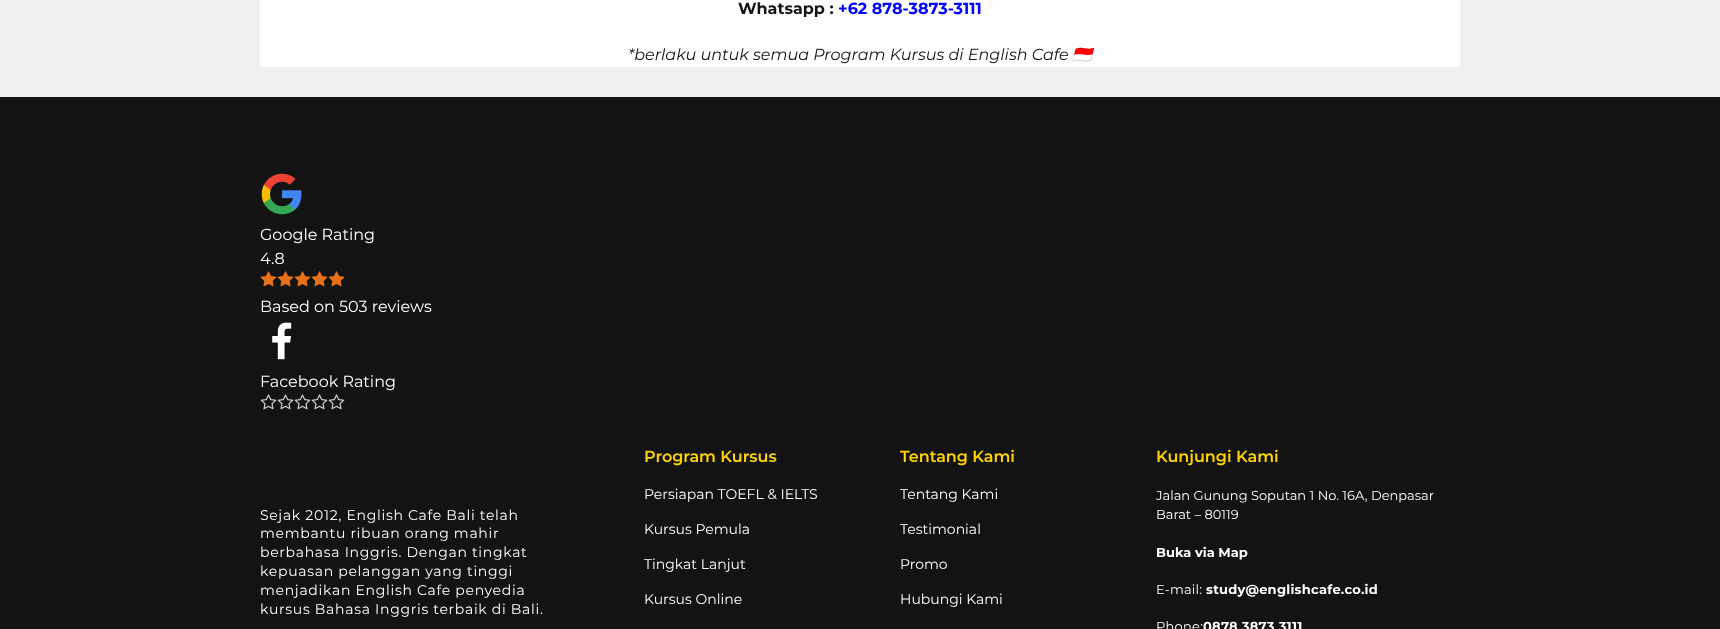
(async () => {
  const canvas = document.querySelector("canvas");
  canvas.width = 1720;
  canvas.height = 629;
  const ctx = canvas.getContext("2d");
  ctx.miterLimit = 4;
  ctx.fontKerning = "normal";
  async function loadImage(src) {
    const img = new Image();
    img.src = src;
    await img.decode();
    return img;
  }

  ctx.fillStyle = "#f0f0f0";
  ctx.fillRect(0, 0, 1720, 629);
  ctx.fillStyle = "#ffffff";
  ctx.fillRect(260, 0, 1200, 67);
  ctx.fillStyle = "#131313";
  ctx.fillRect(0, 97, 1720, 532);
  ctx.drawImage(await loadImage("img/1.png"), 261, 173, 41, 42);
  ctx.drawImage(await loadImage("img/2.png"), 260, 271, 17, 16);
  ctx.drawImage(await loadImage("img/2.png"), 277, 271, 17, 16);
  ctx.drawImage(await loadImage("img/2.png"), 294, 271, 17, 16);
  ctx.drawImage(await loadImage("img/2.png"), 311, 271, 17, 16);
  ctx.drawImage(await loadImage("img/2.png"), 328, 271, 17, 16);
  ctx.drawImage(await loadImage("img/3.png"), 272, 322, 20, 38);
  ctx.drawImage(await loadImage("img/4.png"), 260, 394, 17, 16);
  ctx.drawImage(await loadImage("img/4.png"), 277, 394, 17, 16);
  ctx.drawImage(await loadImage("img/4.png"), 294, 394, 17, 16);
  ctx.drawImage(await loadImage("img/4.png"), 311, 394, 17, 16);
  ctx.drawImage(await loadImage("img/4.png"), 328, 394, 17, 16);
  ctx.font = "bold 16px Montserrat";
  ctx.fillStyle = "#141414";
  ctx.fillText("Whatsapp :", 738, 14);
  ctx.fillStyle = "#0000ff";
  ctx.fillText("+62 878-3873-3111", 838, 14);
  ctx.font = "italic 16px Montserrat";
  ctx.fillStyle = "#141414";
  ctx.fillText("*berlaku untuk semua Program Kursus di English Cafe", 628, 60);
  ctx.font = "italic 16px Noto Color Emoji";
  ctx.fillText("🇮🇩", 1072, 60);
  ctx.font = "16px Montserrat";
  ctx.fillStyle = "#ffffff";
  for (const [text, x, y] of [
    ["Google Rating", 260, 240],
    ["4.8", 260, 264],
    ["Based on 503 reviews", 260, 312],
    ["Facebook Rating", 260, 387],
  ]) {
    ctx.fillText(text, x, y);
  }
  ctx.letterSpacing = "0.7px";
  ctx.font = "14px Montserrat";
  for (const [text, x, y] of [
    ["Sejak 2012, English Cafe Bali telah", 260, 520],
    ["membantu ribuan orang mahir", 260, 538],
    ["berbahasa Inggris. Dengan tingkat", 260, 557],
    ["kepuasan pelanggan yang tinggi", 260, 576],
    ["menjadikan English Cafe penyedia", 260, 595],
    ["kursus Bahasa Inggris terbaik di Bali.", 260, 614],
  ]) {
    ctx.fillText(text, x, y);
  }
  ctx.letterSpacing = "0px";
  ctx.font = "600 16px Montserrat";
  ctx.fillStyle = "#ffd400";
  ctx.fillText("Program Kursus", 644, 462);
  ctx.font = "14px Montserrat";
  ctx.fillStyle = "#ffffff";
  for (const [text, x, y] of [
    ["Persiapan TOEFL & IELTS", 644, 499],
    ["Kursus Pemula", 644, 534],
    ["Tingkat Lanjut", 644, 569],
    ["Kursus Online", 644, 604],
  ]) {
    ctx.fillText(text, x, y);
  }
  ctx.font = "600 16px Montserrat";
  ctx.fillStyle = "#ffd400";
  ctx.fillText("Tentang Kami", 900, 462);
  ctx.font = "14px Montserrat";
  ctx.fillStyle = "#ffffff";
  for (const [text, x, y] of [
    ["Tentang Kami", 900, 499],
    ["Testimonial", 900, 534],
    ["Promo", 900, 569],
    ["Hubungi Kami", 900, 604],
  ]) {
    ctx.fillText(text, x, y);
  }
  ctx.font = "600 16px Montserrat";
  ctx.fillStyle = "#ffd400";
  ctx.fillText("Kunjungi Kami", 1156, 462);
  ctx.font = "13px Montserrat";
  ctx.fillStyle = "#ffffff";
  ctx.fillText("Jalan Gunung Soputan 1 No. 16A, Denpasar", 1156, 500);
  ctx.fillText("Barat – 80119", 1156, 519);
  ctx.font = "bold 13px Montserrat";
  ctx.fillText("Buka via Map", 1156, 557);
  ctx.letterSpacing = "0.25px";
  ctx.font = "13px Montserrat";
  ctx.fillText("E-mail:", 1156, 594);
  ctx.font = "bold 13px Montserrat";
  ctx.fillText("study@englishcafe.co.id", 1206, 594);
  ctx.font = "13px Montserrat";
  ctx.fillText("Phone:", 1156, 631);
  ctx.font = "bold 13px Montserrat";
  ctx.fillText("0878 3873 3111", 1203, 631);
})();
